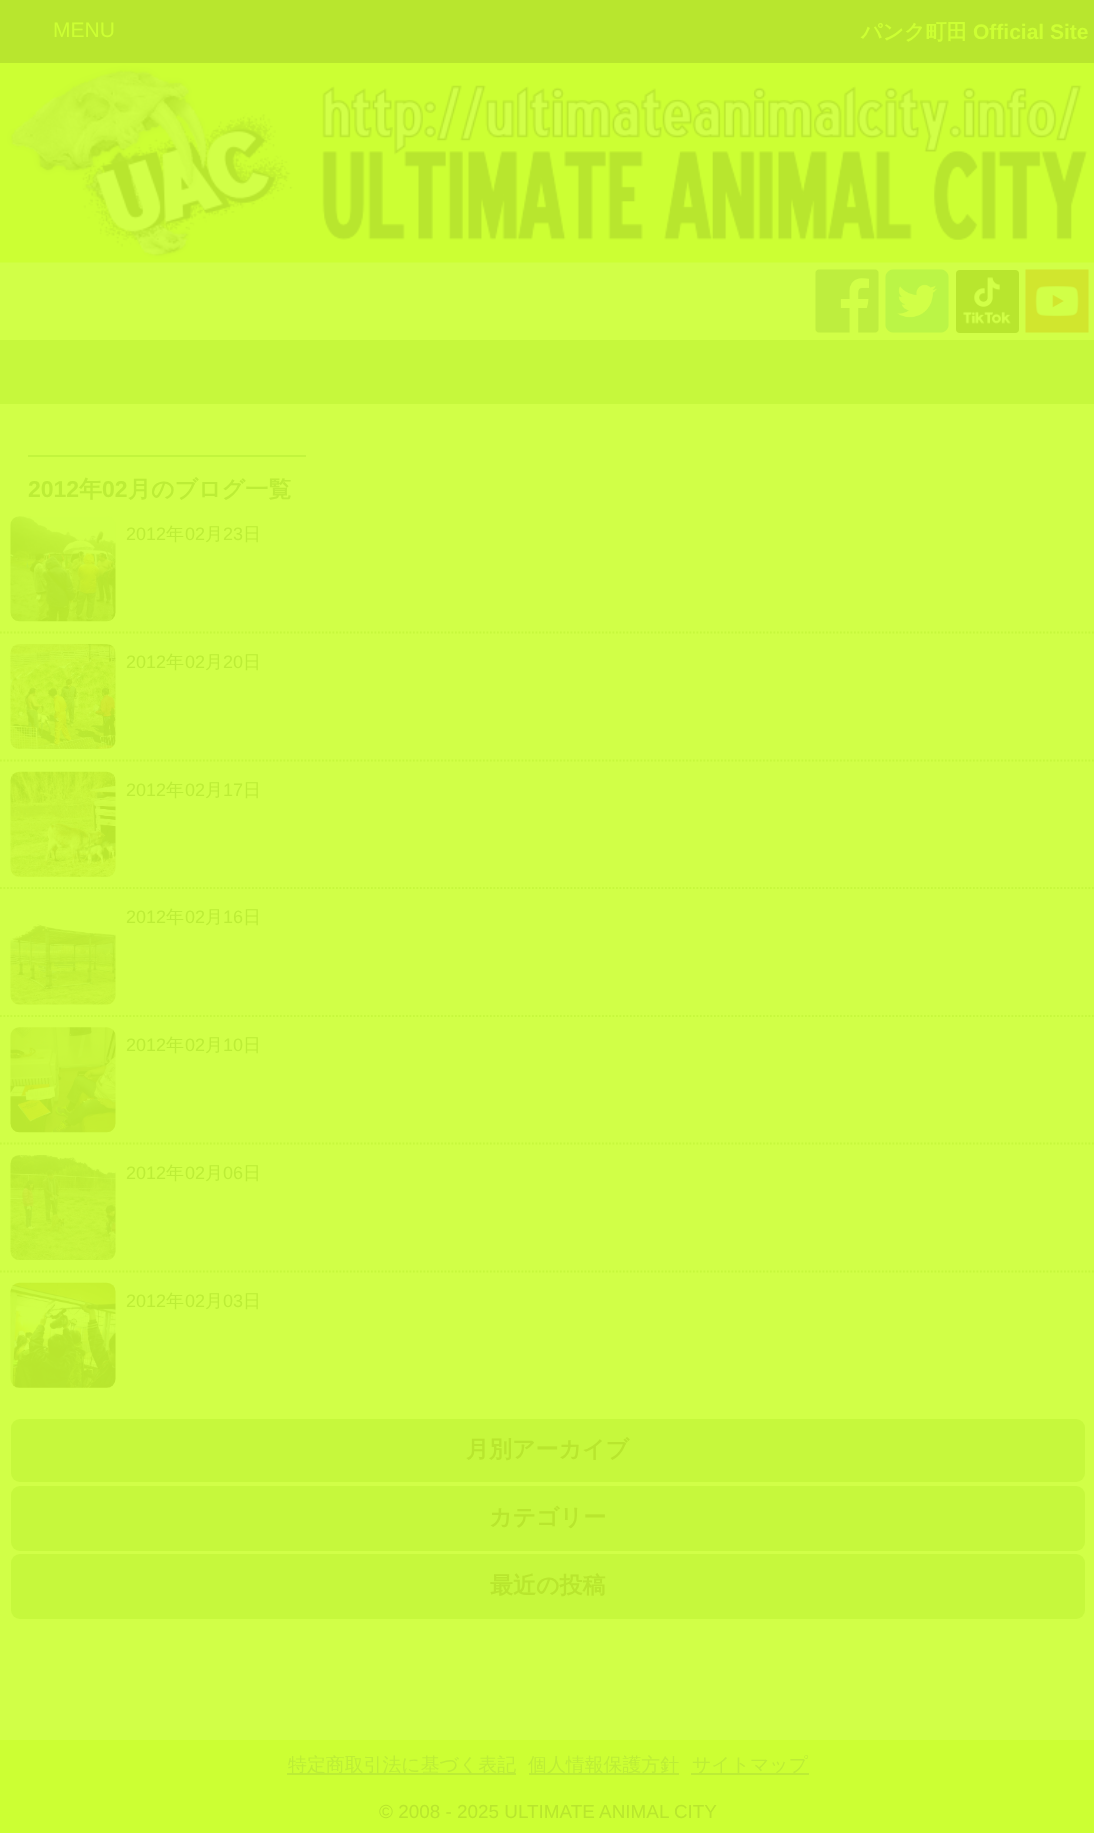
(async () => {
  const canvas = document.querySelector("canvas");
  canvas.width = 1094;
  canvas.height = 1833;
  const ctx = canvas.getContext("2d");
  ctx.miterLimit = 4;
  ctx.fontKerning = "normal";
  async function loadImage(src) {
    const img = new Image();
    img.src = src;
    await img.decode();
    return img;
  }
  let path;

  ctx.fillStyle = "#d1ff47";
  ctx.fillRect(0, 0, 1094, 1833);
  ctx.fillStyle = "#b8e62e";
  ctx.fillRect(0, 0, 1094, 63);
  ctx.drawImage(await loadImage("img/1.png"), 815, 269, 64, 64);
  ctx.drawImage(await loadImage("img/2.png"), 885, 269, 64, 64);
  ctx.beginPath();
  ctx.roundRect(956, 270, 63, 63, 4);
  ctx.fill();
  ctx.drawImage(await loadImage("img/3.png"), 963, 277, 48, 47);
  ctx.drawImage(await loadImage("img/4.png"), 1025, 269, 64, 64);
  ctx.fillStyle = "#c6f83c";
  ctx.fillRect(0, 340, 1094, 64);
  ctx.fillStyle = "#c2f53d";
  ctx.fillRect(28, 455, 278, 2);
  ctx.drawImage(await loadImage("img/5.png"), 10, 516, 106, 106);
  path = new Path2D("M0 632.5H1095.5");
  ctx.strokeStyle = "#c6f83c";
  ctx.lineWidth = 1.8;
  ctx.setLineDash([1.75, 1.75]);
  ctx.stroke(path);
  ctx.drawImage(await loadImage("img/6.png"), 10, 644, 106, 105);
  path = new Path2D("M0 760.5H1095.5");
  ctx.stroke(path);
  ctx.drawImage(await loadImage("img/7.png"), 10, 771, 106, 106);
  path = new Path2D("M0 888H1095.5");
  ctx.stroke(path);
  ctx.drawImage(await loadImage("img/8.png"), 10, 924, 106, 81);
  path = new Path2D("M0 1016H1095.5");
  ctx.stroke(path);
  ctx.drawImage(await loadImage("img/9.png"), 10, 1027, 106, 106);
  path = new Path2D("M0 1143.5H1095.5");
  ctx.stroke(path);
  ctx.drawImage(await loadImage("img/10.png"), 10, 1155, 106, 105);
  path = new Path2D("M0 1271.5H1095.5");
  ctx.stroke(path);
  ctx.drawImage(await loadImage("img/11.png"), 10, 1282, 106, 106);
  ctx.fillStyle = "#c6f83c";
  ctx.beginPath();
  ctx.roundRect(11, 1419, 1074, 63, 9);
  ctx.fill();
  ctx.beginPath();
  ctx.roundRect(11, 1486, 1074, 65, 9);
  ctx.fill();
  ctx.beginPath();
  ctx.roundRect(11, 1554, 1074, 65, 9);
  ctx.fill();
  ctx.drawImage(await loadImage("img/12.png"), 0, 63, 1094, 200);
  for (const [x, y, w, h, color] of [
    [0, 1740, 1094, 93, "#ccff33"],
    [287, 1773, 229, 2, "#bced36"],
    [529, 1773, 150, 2, "#bced36"],
    [691, 1773, 118, 2, "#bced36"],
  ]) {
    ctx.fillStyle = color;
    ctx.fillRect(x, y, w, h);
  }
  ctx.font = "21px Liberation Sans";
  ctx.fillStyle = "#ccff33";
  ctx.fillText("MENU", 53, 37);
  ctx.font = "bold 23px Liberation Sans";
  ctx.fillStyle = "#bced36";
  ctx.fillText("2012", 28, 497);
  ctx.font = "bold 23px WenQuanYi Zen Hei";
  ctx.fillText("年", 79, 497);
  ctx.font = "bold 23px Liberation Sans";
  ctx.fillText("02", 102, 497);
  ctx.font = "bold 23px WenQuanYi Zen Hei";
  ctx.fillText("月のブログ一覧", 128, 497);
  ctx.font = "18px Liberation Sans";
  ctx.fillText("2012", 126, 540);
  ctx.font = "500 18px WenQuanYi Zen Hei";
  ctx.fillText("年", 166, 540);
  ctx.font = "18px Liberation Sans";
  ctx.fillText("02", 185, 540);
  ctx.font = "500 18px WenQuanYi Zen Hei";
  ctx.fillText("月", 205, 540);
  ctx.font = "18px Liberation Sans";
  ctx.fillText("23", 223, 540);
  ctx.font = "500 18px WenQuanYi Zen Hei";
  ctx.fillText("日", 243, 540);
  ctx.font = "18px Liberation Sans";
  ctx.fillText("2012", 126, 668);
  ctx.font = "500 18px WenQuanYi Zen Hei";
  ctx.fillText("年", 166, 668);
  ctx.font = "18px Liberation Sans";
  ctx.fillText("02", 185, 668);
  ctx.font = "500 18px WenQuanYi Zen Hei";
  ctx.fillText("月", 205, 668);
  ctx.font = "18px Liberation Sans";
  ctx.fillText("20", 223, 668);
  ctx.font = "500 18px WenQuanYi Zen Hei";
  ctx.fillText("日", 243, 668);
  ctx.font = "18px Liberation Sans";
  ctx.fillText("2012", 126, 796);
  ctx.font = "500 18px WenQuanYi Zen Hei";
  ctx.fillText("年", 166, 796);
  ctx.font = "18px Liberation Sans";
  ctx.fillText("02", 185, 796);
  ctx.font = "500 18px WenQuanYi Zen Hei";
  ctx.fillText("月", 205, 796);
  ctx.font = "18px Liberation Sans";
  ctx.fillText("17", 223, 796);
  ctx.font = "500 18px WenQuanYi Zen Hei";
  ctx.fillText("日", 243, 796);
  ctx.font = "18px Liberation Sans";
  ctx.fillText("2012", 126, 923);
  ctx.font = "500 18px WenQuanYi Zen Hei";
  ctx.fillText("年", 166, 923);
  ctx.font = "18px Liberation Sans";
  ctx.fillText("02", 185, 923);
  ctx.font = "500 18px WenQuanYi Zen Hei";
  ctx.fillText("月", 205, 923);
  ctx.font = "18px Liberation Sans";
  ctx.fillText("16", 223, 923);
  ctx.font = "500 18px WenQuanYi Zen Hei";
  ctx.fillText("日", 243, 923);
  ctx.font = "18px Liberation Sans";
  ctx.fillText("2012", 126, 1051);
  ctx.font = "500 18px WenQuanYi Zen Hei";
  ctx.fillText("年", 166, 1051);
  ctx.font = "18px Liberation Sans";
  ctx.fillText("02", 185, 1051);
  ctx.font = "500 18px WenQuanYi Zen Hei";
  ctx.fillText("月", 205, 1051);
  ctx.font = "18px Liberation Sans";
  ctx.fillText("10", 223, 1051);
  ctx.font = "500 18px WenQuanYi Zen Hei";
  ctx.fillText("日", 243, 1051);
  ctx.font = "18px Liberation Sans";
  ctx.fillText("2012", 126, 1179);
  ctx.font = "500 18px WenQuanYi Zen Hei";
  ctx.fillText("年", 166, 1179);
  ctx.font = "18px Liberation Sans";
  ctx.fillText("02", 185, 1179);
  ctx.font = "500 18px WenQuanYi Zen Hei";
  ctx.fillText("月", 205, 1179);
  ctx.font = "18px Liberation Sans";
  ctx.fillText("06", 223, 1179);
  ctx.font = "500 18px WenQuanYi Zen Hei";
  ctx.fillText("日", 243, 1179);
  ctx.font = "18px Liberation Sans";
  ctx.fillText("2012", 126, 1307);
  ctx.font = "500 18px WenQuanYi Zen Hei";
  ctx.fillText("年", 166, 1307);
  ctx.font = "18px Liberation Sans";
  ctx.fillText("02", 185, 1307);
  ctx.font = "500 18px WenQuanYi Zen Hei";
  ctx.fillText("月", 205, 1307);
  ctx.font = "18px Liberation Sans";
  ctx.fillText("03", 223, 1307);
  ctx.font = "500 18px WenQuanYi Zen Hei";
  ctx.fillText("日", 243, 1307);
  ctx.font = "bold 23px WenQuanYi Zen Hei";
  ctx.fillStyle = "#b8e62e";
  for (const [text, x, y] of [
    ["月別アーカイブ", 466, 1457],
    ["カテゴリー", 489, 1525],
    ["最近の投稿", 490, 1593],
  ]) {
    ctx.fillText(text, x, y);
  }
  ctx.font = "bold 21px WenQuanYi Zen Hei";
  ctx.fillStyle = "#ccff33";
  ctx.fillText("パンク町田", 861, 39);
  ctx.font = "bold 21px Liberation Sans";
  ctx.fillText("Official Site", 973, 39);
  ctx.font = "500 18.9px WenQuanYi Zen Hei";
  ctx.fillStyle = "#bced36";
  for (const [text, x, y] of [
    ["特定商取引法に基づく表記", 288, 1771],
    ["個人情報保護方針", 528, 1771],
    ["サイトマップ", 692, 1771],
  ]) {
    ctx.fillText(text, x, y);
  }
  ctx.font = "18.9px Liberation Sans";
  ctx.fillStyle = "#b8e62e";
  ctx.fillText("© 2008 - 2025 ULTIMATE ANIMAL CITY", 379, 1818);
})();
